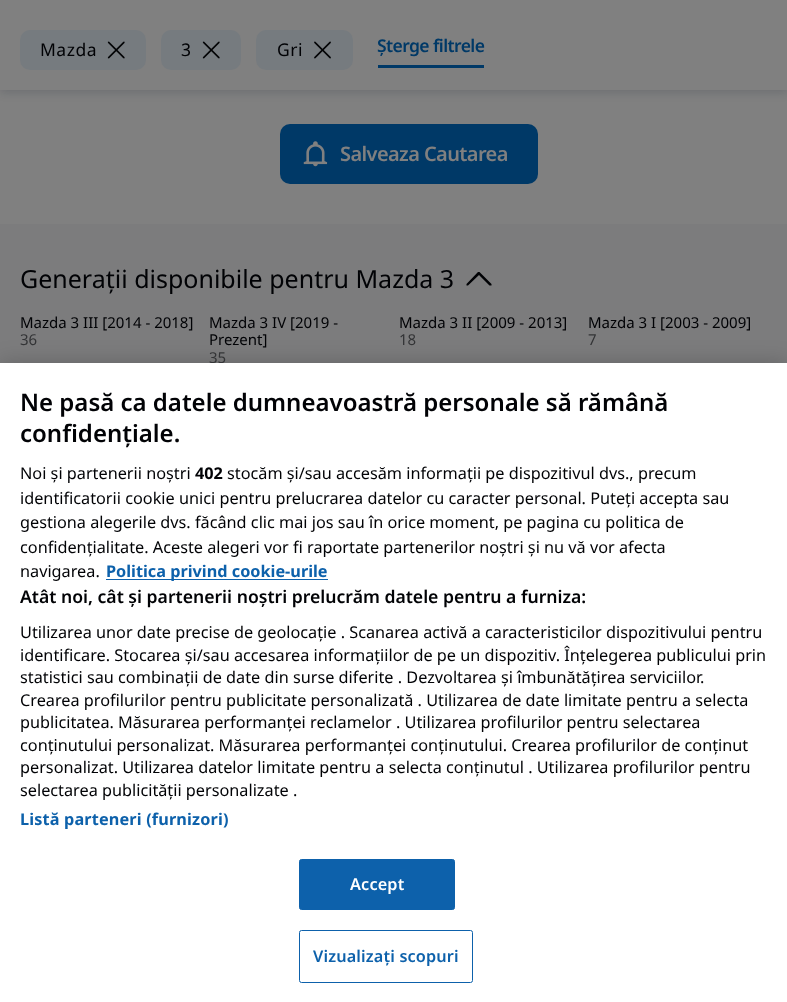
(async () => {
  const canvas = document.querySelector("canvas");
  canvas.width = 787;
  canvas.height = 1002;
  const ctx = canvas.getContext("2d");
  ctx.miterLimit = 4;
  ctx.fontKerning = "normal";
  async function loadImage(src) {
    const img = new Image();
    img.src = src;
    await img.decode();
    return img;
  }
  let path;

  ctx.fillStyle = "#808080";
  ctx.fillRect(0, 0, 787, 1002);
  ctx.fillStyle = "rgba(10, 18, 43, 0.15)";
  ctx.filter = "blur(4px)";
  ctx.beginPath();
  ctx.rect(0, 3, 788, 90);
  ctx.fill();
  ctx.filter = "none";
  ctx.fillStyle = "#808080";
  ctx.fillRect(0, 0, 787, 90);
  ctx.fillStyle = "#767b7f";
  ctx.beginPath();
  ctx.roundRect(20, 30, 126, 40, 10);
  ctx.fill();
  ctx.drawImage(await loadImage("img/1.png"), 107, 41, 18, 18);
  ctx.beginPath();
  ctx.roundRect(161, 30, 80, 40, 10);
  ctx.fill();
  ctx.drawImage(await loadImage("img/1.png"), 202, 41, 18, 18);
  ctx.beginPath();
  ctx.roundRect(256, 30, 97, 40, 10);
  ctx.fill();
  ctx.drawImage(await loadImage("img/2.png"), 314, 41, 17, 18);
  ctx.fillStyle = "#003967";
  ctx.fillRect(378, 65, 106, 3);
  ctx.beginPath();
  ctx.roundRect(280, 124, 258, 60, 10);
  ctx.fill();
  ctx.drawImage(await loadImage("img/3.png"), 303, 141, 25, 26);
  ctx.fillStyle = "#7c7c7d";
  ctx.fillRect(0, 224, 787, 139);
  ctx.fillStyle = "#010205";
  path = new Path2D("M466.5 285.5H468L479 275L489.5 285.5H491.5V284L479.5 272H478L466.5 284Z");
  ctx.fill(path, "evenodd");
  ctx.fillStyle = "rgba(0, 0, 0, 0.2)";
  ctx.filter = "blur(11px)";
  ctx.beginPath();
  ctx.rect(0, 363, 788, 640);
  ctx.fill();
  ctx.filter = "none";
  ctx.letterSpacing = "0.5px";
  ctx.font = "17.5px Noto Sans";
  ctx.fillStyle = "#010205";
  for (const [text, x, y] of [
    ["Mazda", 40, 56],
    ["3", 181, 56],
    ["Gri", 277, 56],
  ]) {
    ctx.fillText(text, x, y);
  }
  ctx.letterSpacing = "-0.6px";
  ctx.font = "600 17.5px Noto Sans";
  ctx.fillStyle = "#003967";
  ctx.fillText("Șterge filtrele", 377, 52);
  ctx.font = "600 20px Noto Sans";
  ctx.fillStyle = "#808080";
  ctx.fillText("Salveaza Cautarea", 340, 161);
  ctx.letterSpacing = "0px";
  ctx.font = "25px Noto Sans";
  ctx.fillStyle = "#010205";
  ctx.fillText("Generații disponibile pentru Mazda 3", 20, 288);
  ctx.font = "15px Noto Sans";
  ctx.fillText("Mazda 3 III [2014 - 2018]", 20, 328);
  ctx.fillStyle = "#333436";
  ctx.fillText("36", 20, 345);
  ctx.fillStyle = "#010205";
  ctx.fillText("Mazda 3 IV [2019 -", 209, 328);
  ctx.fillText("Prezent]", 209, 345);
  ctx.fillStyle = "#333436";
  ctx.fillText("35", 209, 363);
  ctx.fillStyle = "#010205";
  ctx.fillText("Mazda 3 II [2009 - 2013]", 399, 328);
  ctx.fillStyle = "#333436";
  ctx.fillText("18", 399, 345);
  ctx.fillStyle = "#010205";
  ctx.fillText("Mazda 3 I [2003 - 2009]", 588, 328);
  ctx.fillStyle = "#333436";
  ctx.fillText("7", 588, 345);
  ctx.fillStyle = "#ffffff";
  ctx.fillRect(0, 363, 787, 639);
  ctx.font = "600 24px Noto Sans";
  ctx.fillStyle = "#010205";
  ctx.fillText("Ne pasă ca datele dumneavoastră personale să rămână", 20, 411);
  ctx.fillText("confidențiale.", 20, 442);
  ctx.font = "16.25px Noto Sans";
  ctx.fillText("Noi și partenerii noștri", 20, 479);
  ctx.font = "bold 16.25px Noto Sans";
  ctx.fillText("402", 195, 479);
  ctx.font = "16.25px Noto Sans";
  for (const [text, x, y] of [
    ["stocăm și/sau accesăm informații pe dispozitivul dvs., precum", 227, 479],
    ["identificatorii cookie unici pentru prelucrarea datelor cu caracter personal. Puteți accepta sau", 20, 504],
    ["gestiona alegerile dvs. făcând clic mai jos sau în orice moment, pe pagina cu politica de", 20, 528],
    ["confidențialitate. Aceste alegeri vor fi raportate partenerilor noștri și nu vă vor afecta", 20, 553],
    ["navigarea.", 20, 577],
  ]) {
    ctx.fillText(text, x, y);
  }
  ctx.fillStyle = "#0d61ab";
  ctx.fillRect(106, 579, 222, 1);
  ctx.font = "bold 16.25px Noto Sans";
  ctx.fillText("Politica privind cookie-urile", 106, 577);
  ctx.font = "600 17.6px Noto Sans";
  ctx.fillStyle = "#010205";
  ctx.fillText("Atât noi, cât și partenerii noștri prelucrăm datele pentru a furniza:", 20, 603);
  ctx.font = "16.25px Noto Sans";
  for (const [text, x, y] of [
    ["Utilizarea unor date precise de geolocație . Scanarea activă a caracteristicilor dispozitivului pentru", 20, 638],
    ["identificare. Stocarea și/sau accesarea informațiilor de pe un dispozitiv. Înțelegerea publicului prin", 20, 661],
    ["statistici sau combinații de date din surse diferite . Dezvoltarea și îmbunătățirea serviciilor.", 20, 683],
    ["Crearea profilurilor pentru publicitate personalizată . Utilizarea de date limitate pentru a selecta", 20, 706],
    ["publicitatea. Măsurarea performanței reclamelor . Utilizarea profilurilor pentru selectarea", 20, 728],
    ["conținutului personalizat. Măsurarea performanței conținutului. Crearea profilurilor de conținut", 20, 751],
    ["personalizat. Utilizarea datelor limitate pentru a selecta conținutul . Utilizarea profilurilor pentru", 20, 773],
    ["selectarea publicității personalizate .", 20, 796],
  ]) {
    ctx.fillText(text, x, y);
  }
  ctx.letterSpacing = "0.15px";
  ctx.font = "bold 16.25px Noto Sans";
  ctx.fillStyle = "#0d61ab";
  ctx.fillText("Listă parteneri (furnizori)", 20, 825);
  ctx.beginPath();
  ctx.roundRect(299.5, 859.5, 155, 50, 2);
  ctx.fill();
  ctx.strokeStyle = "#0d61ab";
  ctx.stroke();
  ctx.font = "600 16.25px Noto Sans";
  ctx.fillStyle = "#ffffff";
  ctx.fillText("Accept", 350, 890);
  ctx.beginPath();
  ctx.roundRect(299.5, 930.5, 173, 52, 2);
  ctx.stroke();
  ctx.fillStyle = "#0d61ab";
  ctx.fillText("Vizualizați scopuri", 313, 962);
})();
